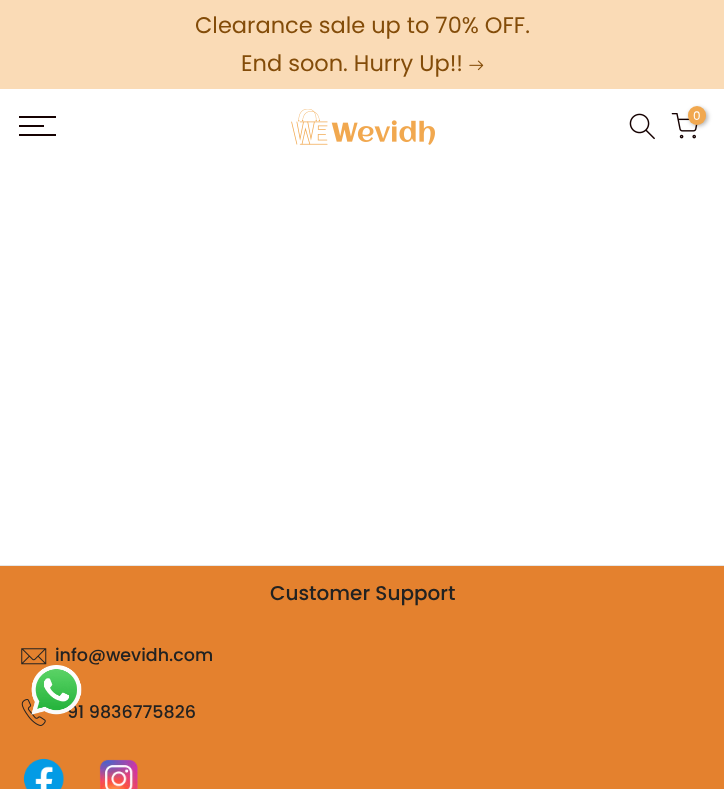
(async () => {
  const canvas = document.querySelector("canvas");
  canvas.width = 724;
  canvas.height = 789;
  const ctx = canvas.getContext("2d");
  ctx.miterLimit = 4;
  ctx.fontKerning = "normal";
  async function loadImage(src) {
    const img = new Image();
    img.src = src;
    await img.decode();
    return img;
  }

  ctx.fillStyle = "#ffffff";
  ctx.fillRect(0, 0, 724, 789);
  ctx.fillStyle = "#fadbb6";
  ctx.fillRect(0, 0, 724, 89);
  ctx.drawImage(await loadImage("img/1.png"), 469, 60, 15, 11);
  ctx.drawImage(await loadImage("img/2.png"), 291, 109, 144, 36);
  ctx.drawImage(await loadImage("img/3.png"), 629, 113, 26, 27);
  ctx.drawImage(await loadImage("img/4.png"), 671, 113, 27, 26);
  ctx.fillStyle = "rgba(0, 0, 0, 0.3)";
  ctx.filter = "blur(2px)";
  ctx.beginPath();
  ctx.roundRect(689, 108, 19, 18, 9);
  ctx.fill();
  ctx.filter = "none";
  ctx.fillStyle = "#f1a84f";
  ctx.beginPath();
  ctx.roundRect(688, 106, 18, 19, 9);
  ctx.fill();
  for (const [x, y, w, h, color] of [
    [19, 116, 37, 2, "#150101"],
    [19, 125, 25, 2, "#150101"],
    [19, 134, 37, 2, "#150101"],
    [0, 566, 724, 223, "#e4812e"],
    [0, 565, 724, 1, "#e6e6e6"],
  ]) {
    ctx.fillStyle = color;
    ctx.fillRect(x, y, w, h);
  }
  ctx.drawImage(await loadImage("img/5.png"), 21, 648, 26, 17);
  ctx.drawImage(await loadImage("img/6.png"), 21, 699, 25, 27);
  ctx.drawImage(await loadImage("img/7.png"), 23, 758, 41, 31);
  ctx.drawImage(await loadImage("img/8.png"), 99, 759, 39, 30);
  ctx.font = "22.5px Poppins";
  ctx.fillStyle = "#834c09";
  ctx.fillText("Clearance sale up to 70% OFF.", 195, 33);
  ctx.fillText("End soon. Hurry Up!!", 241, 71);
  ctx.font = "12px Poppins";
  ctx.fillStyle = "#ffffff";
  ctx.fillText("0", 693, 120);
  ctx.font = "500 20px Poppins";
  ctx.fillStyle = "#222222";
  ctx.fillText("Customer Support", 270, 600);
  ctx.font = "500 17.5px Poppins";
  ctx.fillText("info@wevidh.com", 55, 661);
  ctx.fillText("91 9836775826", 67, 718);
  ctx.drawImage(await loadImage("img/9.png"), 31, 665, 51, 50);
})();
